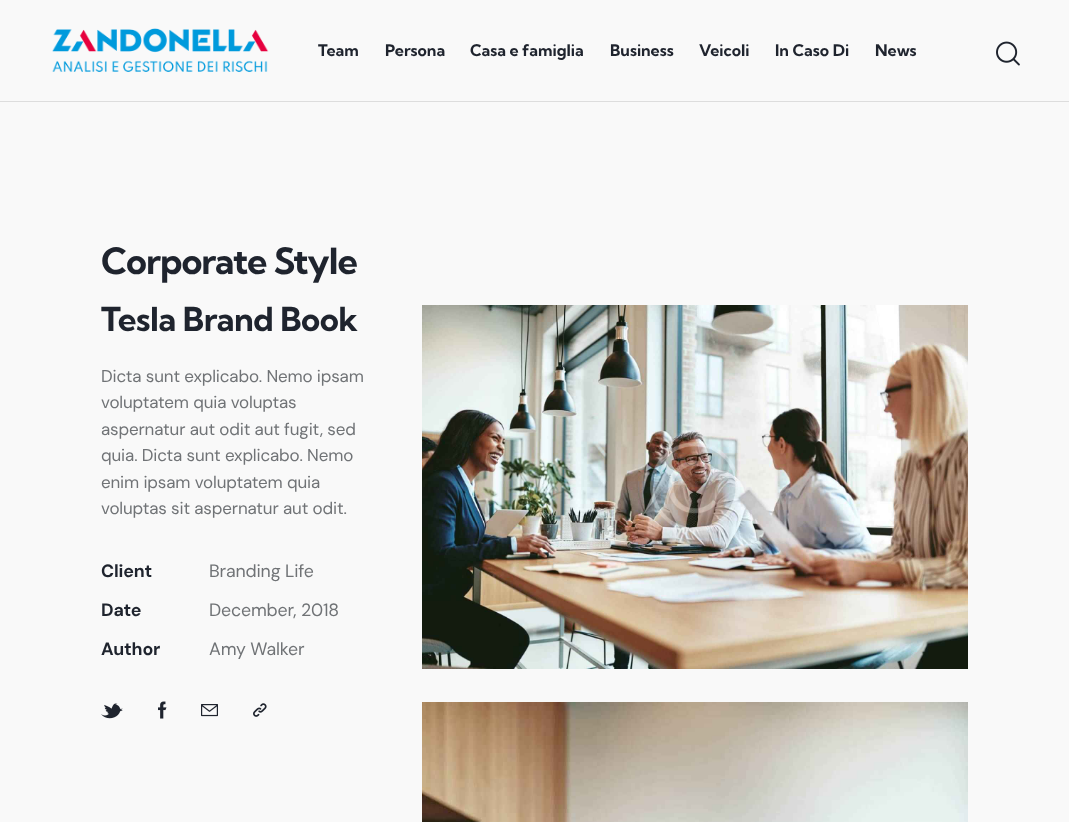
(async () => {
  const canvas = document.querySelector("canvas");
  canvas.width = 1069;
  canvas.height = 822;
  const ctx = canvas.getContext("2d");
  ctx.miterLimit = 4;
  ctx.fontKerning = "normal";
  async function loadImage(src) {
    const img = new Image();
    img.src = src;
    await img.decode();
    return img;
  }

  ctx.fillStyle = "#f9f9f9";
  ctx.fillRect(0, 0, 1069, 822);
  ctx.fillStyle = "#dddddd";
  ctx.fillRect(0, 101, 1069, 1);
  ctx.drawImage(await loadImage("img/1.png"), 52, 28, 217, 44);
  ctx.drawImage(await loadImage("img/2.png"), 996, 41, 24, 25);
  ctx.drawImage(await loadImage("img/3.png"), 101, 703, 22, 16);
  ctx.drawImage(await loadImage("img/4.png"), 158, 701, 9, 18);
  ctx.drawImage(await loadImage("img/5.png"), 201, 704, 17, 13);
  ctx.drawImage(await loadImage("img/6.png"), 253, 703, 14, 14);
  ctx.drawImage(await loadImage("img/7.png"), 422, 305, 546, 364);
  ctx.drawImage(await loadImage("img/8.png"), 422, 702, 546, 120);
  ctx.font = "bold 16px Kumbh Sans";
  ctx.fillStyle = "#1f242e";
  for (const [text, x, y] of [
    ["Team", 318, 56],
    ["Persona", 385, 56],
    ["Casa e famiglia", 470, 56],
    ["Business", 610, 56],
    ["Veicoli", 699, 56],
    ["In Caso Di", 775, 56],
    ["News", 875, 56],
  ]) {
    ctx.fillText(text, x, y);
  }
  ctx.letterSpacing = "-1px";
  ctx.font = "bold 36px Kumbh Sans";
  ctx.fillText("Corporate Style", 101, 274);
  ctx.letterSpacing = "-0.5px";
  ctx.font = "bold 33px Kumbh Sans";
  ctx.fillText("Tesla Brand Book", 101, 331);
  ctx.letterSpacing = "-0.15px";
  ctx.font = "17px DM Sans";
  ctx.fillStyle = "#707376";
  for (const [text, x, y] of [
    ["Dicta sunt explicabo. Nemo ipsam", 101, 382],
    ["voluptatem quia voluptas", 101, 408],
    ["aspernatur aut odit aut fugit, sed", 101, 435],
    ["quia. Dicta sunt explicabo. Nemo", 101, 461],
    ["enim ipsam voluptatem quia", 101, 488],
    ["voluptas sit aspernatur aut odit.", 101, 514],
  ]) {
    ctx.fillText(text, x, y);
  }
  ctx.font = "bold 17.75px DM Sans";
  ctx.fillStyle = "#1f242e";
  ctx.fillText("Client", 101, 577);
  ctx.font = "17.75px DM Sans";
  ctx.fillStyle = "#707376";
  ctx.fillText("Branding Life", 209, 577);
  ctx.font = "bold 17.75px DM Sans";
  ctx.fillStyle = "#1f242e";
  ctx.fillText("Date", 101, 616);
  ctx.font = "17.75px DM Sans";
  ctx.fillStyle = "#707376";
  ctx.fillText("December, 2018", 209, 616);
  ctx.font = "bold 17.75px DM Sans";
  ctx.fillStyle = "#1f242e";
  ctx.fillText("Author", 101, 655);
  ctx.font = "17.75px DM Sans";
  ctx.fillStyle = "#707376";
  ctx.fillText("Amy Walker", 209, 655);
})();
